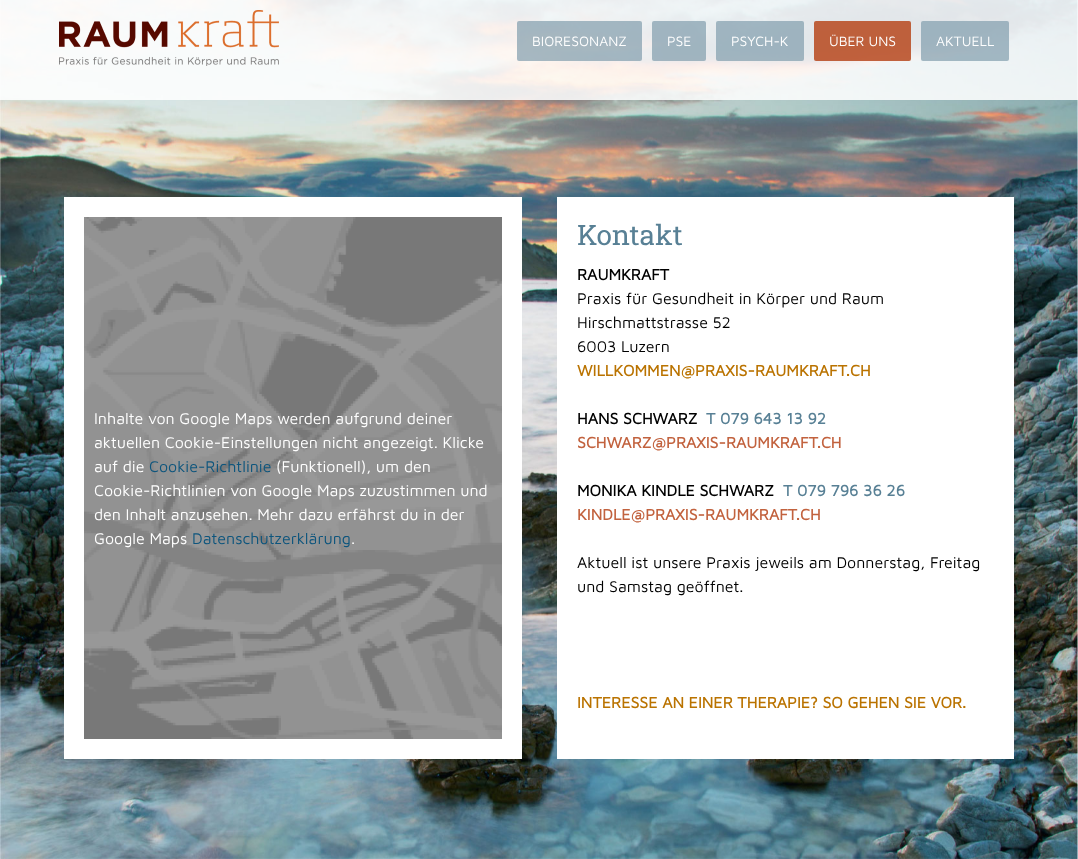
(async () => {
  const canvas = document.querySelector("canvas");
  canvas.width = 1078;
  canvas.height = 859;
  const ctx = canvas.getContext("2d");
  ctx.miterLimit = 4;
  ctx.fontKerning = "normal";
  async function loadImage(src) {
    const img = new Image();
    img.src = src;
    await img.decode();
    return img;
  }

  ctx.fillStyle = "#ffffff";
  ctx.fillRect(0, 0, 1078, 859);
  ctx.drawImage(await loadImage("img/1.png"), 0, 0, 1078, 859);
  ctx.fillStyle = "rgba(255, 255, 255, 0.86)";
  ctx.fillRect(0, 0, 1078, 100);
  ctx.drawImage(await loadImage("img/2.png"), 59, 10, 220, 56);
  ctx.fillStyle = "rgba(128, 157, 173, 0.7)";
  ctx.beginPath();
  ctx.roundRect(517, 21, 125, 40, 2);
  ctx.fill();
  ctx.beginPath();
  ctx.roundRect(652, 21, 54, 40, 2);
  ctx.fill();
  ctx.beginPath();
  ctx.roundRect(716, 21, 88, 40, 2);
  ctx.fill();
  ctx.fillStyle = "rgba(184, 73, 31, 0.86)";
  ctx.beginPath();
  ctx.roundRect(814, 21, 97, 40, 2);
  ctx.fill();
  ctx.fillStyle = "rgba(128, 157, 173, 0.7)";
  ctx.beginPath();
  ctx.roundRect(921, 21, 88, 40, 2);
  ctx.fill();
  ctx.fillStyle = "#ffffff";
  ctx.fillRect(64, 197, 458, 562);
  ctx.drawImage(await loadImage("img/3.png"), 84, 217, 418, 522);
  ctx.fillRect(557, 197, 457, 562);
  ctx.font = "14px Maven Pro";
  for (const [text, x, y] of [
    ["BIORESONANZ", 532, 46],
    ["PSE", 667, 46],
    ["PSYCH-K", 731, 46],
    ["ÜBER UNS", 829, 46],
    ["AKTUELL", 936, 46],
  ]) {
    ctx.fillText(text, x, y);
  }
  ctx.font = "16px Maven Pro";
  for (const [text, x, y] of [
    ["Inhalte von Google Maps werden aufgrund deiner", 94, 424],
    ["aktuellen Cookie-Einstellungen nicht angezeigt. Klicke", 94, 448],
    ["auf die", 94, 472],
  ]) {
    ctx.fillText(text, x, y);
  }
  ctx.fillStyle = "#0d557d";
  ctx.fillText("Cookie-Richtlinie", 149, 472);
  ctx.fillStyle = "#ffffff";
  for (const [text, x, y] of [
    ["(Funktionell), um den", 276, 472],
    ["Cookie-Richtlinien von Google Maps zuzustimmen und", 94, 496],
    ["den Inhalt anzusehen. Mehr dazu erfährst du in der", 94, 520],
    ["Google Maps", 94, 544],
  ]) {
    ctx.fillText(text, x, y);
  }
  ctx.fillStyle = "#0d557d";
  ctx.fillText("Datenschutzerklärung", 192, 544);
  ctx.fillStyle = "#ffffff";
  ctx.fillText(".", 351, 544);
  ctx.font = "28px Roboto Slab";
  ctx.fillStyle = "#588095";
  ctx.fillText("Kontakt", 577, 245);
  ctx.font = "bold 16px Maven Pro";
  ctx.fillStyle = "#000000";
  ctx.fillText("RAUMKRAFT", 577, 280);
  ctx.font = "16px Maven Pro";
  for (const [text, x, y] of [
    ["Praxis für Gesundheit in Körper und Raum", 577, 304],
    ["Hirschmattstrasse 52", 577, 328],
    ["6003 Luzern", 577, 352],
  ]) {
    ctx.fillText(text, x, y);
  }
  ctx.font = "bold 16px Maven Pro";
  ctx.fillStyle = "#ba7300";
  ctx.fillText("WILLKOMMEN@PRAXIS-RAUMKRAFT.CH", 577, 376);
  ctx.fillStyle = "#000000";
  ctx.fillText("HANS SCHWARZ", 577, 424);
  ctx.fillStyle = "#588095";
  ctx.fillText("T 079 643 13 92", 706, 424);
  ctx.fillStyle = "#c2623e";
  ctx.fillText("SCHWARZ@PRAXIS-RAUMKRAFT.CH", 577, 448);
  ctx.fillStyle = "#000000";
  ctx.fillText("MONIKA KINDLE SCHWARZ", 577, 496);
  ctx.fillStyle = "#588095";
  ctx.fillText("T 079 796 36 26", 783, 496);
  ctx.fillStyle = "#c2623e";
  ctx.fillText("KINDLE@PRAXIS-RAUMKRAFT.CH", 577, 520);
  ctx.font = "16px Maven Pro";
  ctx.fillStyle = "#000000";
  ctx.fillText("Aktuell ist unsere Praxis jeweils am Donnerstag, Freitag", 577, 568);
  ctx.fillText("und Samstag geöffnet.", 577, 592);
  ctx.font = "bold 16px Maven Pro";
  ctx.fillStyle = "#ba7300";
  ctx.fillText("INTERESSE AN EINER THERAPIE? SO GEHEN SIE VOR.", 577, 708);
})();
